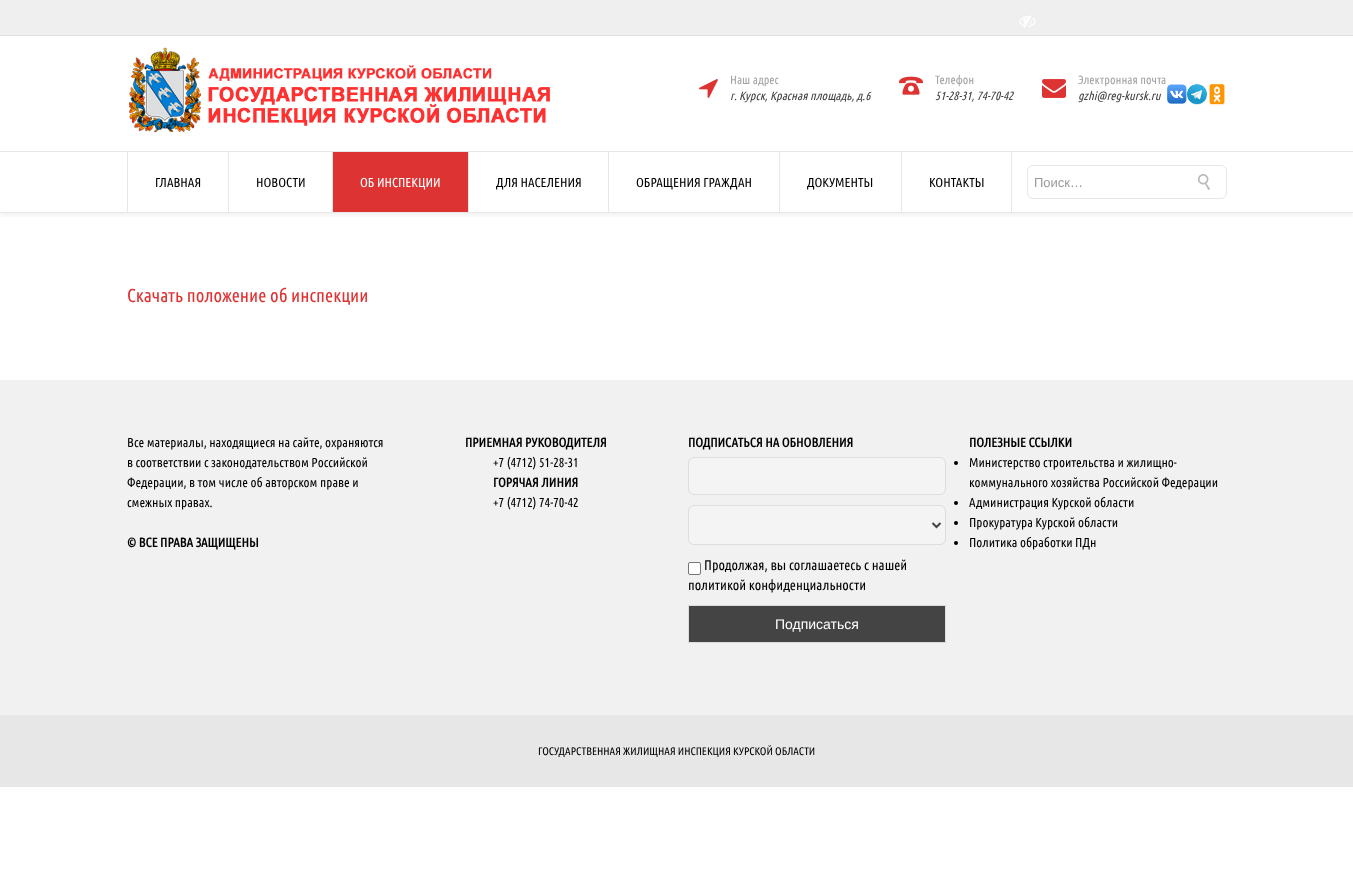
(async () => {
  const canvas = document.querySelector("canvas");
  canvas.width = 1353;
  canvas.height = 894;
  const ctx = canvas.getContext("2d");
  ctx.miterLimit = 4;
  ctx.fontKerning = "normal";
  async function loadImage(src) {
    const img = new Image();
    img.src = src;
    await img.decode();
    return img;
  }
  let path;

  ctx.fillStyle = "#ffffff";
  ctx.fillRect(0, 0, 1353, 894);
  ctx.fillStyle = "#efefef";
  ctx.fillRect(0, 0, 1353, 35);
  ctx.fillStyle = "#e1e1e1";
  ctx.fillRect(0, 35, 1353, 1);
  ctx.drawImage(await loadImage("img/1.png"), 1019, 15, 17, 13);
  ctx.drawImage(await loadImage("img/2.png"), 129, 47, 421, 85);
  ctx.drawImage(await loadImage("img/3.png"), 699, 79, 19, 19);
  ctx.drawImage(await loadImage("img/4.png"), 899, 76, 24, 19);
  ctx.drawImage(await loadImage("img/5.png"), 1042, 79, 24, 19);
  ctx.drawImage(await loadImage("img/6.png"), 1167, 84, 20, 20);
  ctx.drawImage(await loadImage("img/7.png"), 1187, 84, 20, 21);
  ctx.drawImage(await loadImage("img/8.png"), 1209, 84, 16, 21);
  ctx.save();
  ctx.beginPath();
  ctx.rect(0, 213, 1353, 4);
  ctx.clip();
  ctx.fillStyle = "rgba(0, 0, 0, 0.05)";
  ctx.filter = "blur(2.5px)";
  ctx.beginPath();
  ctx.rect(0, 154, 1353, 62);
  ctx.fill();
  ctx.filter = "none";
  ctx.restore();
  for (const [x, y, w, h, color] of [
    [0, 151, 1353, 1, "#e7e7e7"],
    [0, 212, 1353, 1, "#e7e7e7"],
    [127, 152, 1, 60, "#e7e7e7"],
    [228, 152, 1, 60, "#e7e7e7"],
    [333, 152, 135, 60, "#dd3333"],
    [332, 152, 1, 60, "#e7e7e7"],
    [468, 152, 1, 60, "#e7e7e7"],
    [608, 152, 1, 60, "#e7e7e7"],
    [779, 152, 1, 60, "#e7e7e7"],
    [1011, 152, 1, 60, "#e7e7e7"],
    [901, 152, 1, 60, "#e7e7e7"],
  ]) {
    ctx.fillStyle = color;
    ctx.fillRect(x, y, w, h);
  }
  ctx.beginPath();
  ctx.roundRect(1027.5, 165.5, 199, 33, 5.5);
  ctx.strokeStyle = "#e7e7e7";
  ctx.stroke();
  ctx.drawImage(await loadImage("img/9.png"), 1197, 174, 13, 16);
  ctx.fillStyle = "#f1f1f1";
  ctx.fillRect(0, 380, 1353, 335);
  ctx.fillStyle = "#f4f4f4";
  ctx.beginPath();
  ctx.roundRect(688.5, 457.5, 257, 37, 5.5);
  ctx.fill();
  ctx.strokeStyle = "#dddddd";
  ctx.stroke();
  ctx.beginPath();
  ctx.roundRect(688.5, 505.5, 257, 39, 5.5);
  ctx.fill();
  ctx.stroke();
  path = new Path2D("M932.5 523L936.5 527L940.5 523");
  ctx.strokeStyle = "#444444";
  ctx.lineWidth = 2;
  ctx.stroke(path);
  ctx.fillStyle = "#ffffff";
  ctx.beginPath();
  ctx.roundRect(688.5, 562.5, 12, 12, 1.5);
  ctx.fill();
  ctx.strokeStyle = "#767676";
  ctx.lineWidth = 1;
  ctx.stroke();
  ctx.fillStyle = "#444444";
  ctx.beginPath();
  ctx.rect(688.5, 605.5, 257, 37);
  ctx.fill();
  ctx.strokeStyle = "#dddddd";
  ctx.stroke();
  ctx.fillStyle = "#000000";
  ctx.beginPath();
  ctx.arc(956, 463, 2, 0, Math.PI * 2);
  ctx.fill();
  ctx.beginPath();
  ctx.arc(956, 503, 2, 0, Math.PI * 2);
  ctx.fill();
  ctx.beginPath();
  ctx.arc(956, 523, 2, 0, Math.PI * 2);
  ctx.fill();
  ctx.beginPath();
  ctx.arc(956, 543, 2, 0, Math.PI * 2);
  ctx.fill();
  ctx.fillStyle = "#e7e7e7";
  ctx.fillRect(0, 715, 1353, 72);
  ctx.font = "12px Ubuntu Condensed";
  ctx.fillStyle = "#a4a4a4";
  ctx.fillText("Наш адрес", 730, 84);
  ctx.font = "italic 12px Ubuntu Condensed";
  ctx.fillStyle = "#444444";
  ctx.fillText("г. Курск, Красная площадь, д.6", 730, 100);
  ctx.font = "12px Ubuntu Condensed";
  ctx.fillStyle = "#a4a4a4";
  ctx.fillText("Телефон", 935, 84);
  ctx.font = "italic 12px Ubuntu Condensed";
  ctx.fillStyle = "#444444";
  ctx.fillText("51-28-31, 74-70-42", 935, 100);
  ctx.font = "12px Ubuntu Condensed";
  ctx.fillStyle = "#a4a4a4";
  ctx.fillText("Электронная почта", 1078, 84);
  ctx.font = "italic 12px Ubuntu Condensed";
  ctx.fillStyle = "#444444";
  ctx.fillText("gzhi@reg-kursk.ru", 1078, 100);
  ctx.font = "13px Ubuntu Condensed";
  ctx.fillStyle = "#000000";
  ctx.fillText("ГЛАВНАЯ", 155, 187);
  ctx.fillText("НОВОСТИ", 256, 187);
  ctx.fillStyle = "#ffffff";
  ctx.fillText("ОБ ИНСПЕКЦИИ", 360, 187);
  ctx.fillStyle = "#000000";
  for (const [text, x, y] of [
    ["ДЛЯ НАСЕЛЕНИЯ", 496, 187],
    ["ОБРАЩЕНИЯ ГРАЖДАН", 636, 187],
    ["ДОКУМЕНТЫ", 807, 187],
    ["КОНТАКТЫ", 929, 187],
  ]) {
    ctx.fillText(text, x, y);
  }
  ctx.font = "13px Liberation Sans";
  ctx.fillStyle = "#999999";
  ctx.fillText("Поиск…", 1034, 187);
  ctx.font = "18.7px Ubuntu Condensed";
  ctx.fillStyle = "#dd3333";
  ctx.fillText("Скачать положение об инспекции", 127, 302);
  ctx.font = "13px Ubuntu Condensed";
  ctx.fillStyle = "#000000";
  for (const [text, x, y] of [
    ["Все материалы, находящиеся на сайте, охраняются", 127, 447],
    ["в соответствии с законодательством Российской", 127, 467],
    ["Федерации, в том числе об авторском праве и", 127, 487],
    ["смежных правах.", 127, 507],
  ]) {
    ctx.fillText(text, x, y);
  }
  ctx.font = "bold 13px Ubuntu Condensed";
  ctx.fillText("© ВСЕ ПРАВА ЗАЩИЩЕНЫ", 127, 547);
  ctx.fillText("ПРИЕМНАЯ РУКОВОДИТЕЛЯ", 465, 447);
  ctx.font = "13px Ubuntu Condensed";
  ctx.fillText("+7 (4712) 51-28-31", 493, 467);
  ctx.font = "bold 13px Ubuntu Condensed";
  ctx.fillText("ГОРЯЧАЯ ЛИНИЯ", 493, 487);
  ctx.font = "13px Ubuntu Condensed";
  ctx.fillText("+7 (4712) 74-70-42", 493, 507);
  ctx.font = "bold 13px Ubuntu Condensed";
  ctx.fillText("ПОДПИСАТЬСЯ НА ОБНОВЛЕНИЯ", 688, 447);
  ctx.font = "14px Ubuntu Condensed";
  ctx.fillText("Продолжая, вы соглашаетесь с нашей", 704, 570);
  ctx.fillText("политикой конфиденциальности", 688, 590);
  ctx.font = "14px Liberation Sans";
  ctx.fillStyle = "#ffffff";
  ctx.fillText("Подписаться", 775, 629);
  ctx.font = "bold 13px Ubuntu Condensed";
  ctx.fillStyle = "#000000";
  ctx.fillText("ПОЛЕЗНЫЕ ССЫЛКИ", 969, 447);
  ctx.font = "13px Ubuntu Condensed";
  for (const [text, x, y] of [
    ["Министерство строительства и жилищно-", 969, 467],
    ["коммунального хозяйства Российской Федерации", 969, 487],
    ["Администрация Курской области", 969, 507],
    ["Прокуратура Курской области", 969, 527],
    ["Политика обработки ПДн", 969, 547],
  ]) {
    ctx.fillText(text, x, y);
  }
  ctx.font = "11px Ubuntu Condensed";
  ctx.fillText("ГОСУДАРСТВЕННАЯ ЖИЛИЩНАЯ ИНСПЕКЦИЯ КУРСКОЙ ОБЛАСТИ", 538, 755);
})();
